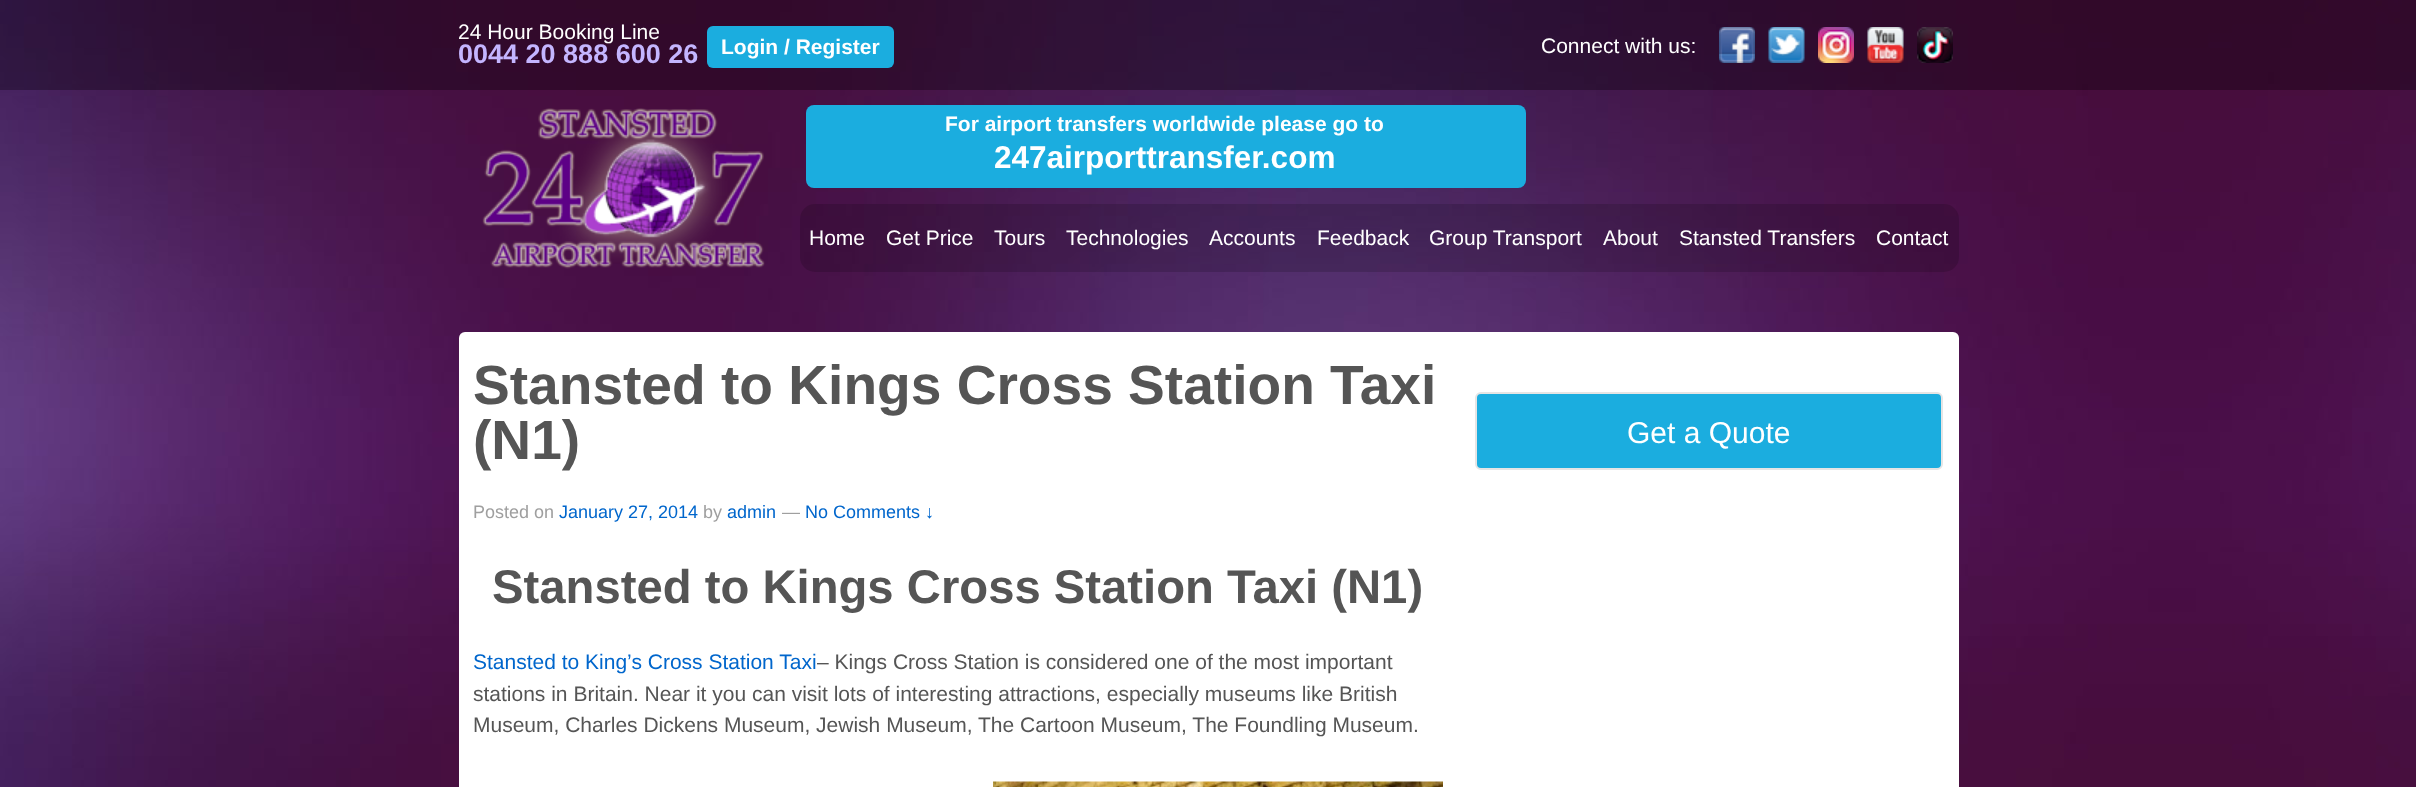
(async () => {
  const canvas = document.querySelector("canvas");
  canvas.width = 2416;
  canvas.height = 787;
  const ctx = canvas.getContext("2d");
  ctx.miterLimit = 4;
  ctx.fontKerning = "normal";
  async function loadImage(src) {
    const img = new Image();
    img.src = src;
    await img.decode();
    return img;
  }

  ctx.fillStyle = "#ffffff";
  ctx.fillRect(0, 0, 2416, 787);
  ctx.drawImage(await loadImage("img/1.png"), 0, 0, 2416, 787);
  ctx.fillStyle = "rgba(0, 0, 0, 0.3)";
  ctx.fillRect(0, 0, 2416, 90);
  ctx.fillStyle = "#1baddf";
  ctx.beginPath();
  ctx.roundRect(707, 26, 187, 42, 6);
  ctx.fill();
  ctx.drawImage(await loadImage("img/2.png"), 1719, 27, 36, 36);
  ctx.drawImage(await loadImage("img/3.png"), 1768, 27, 37, 36);
  ctx.drawImage(await loadImage("img/4.png"), 1818, 27, 36, 36);
  ctx.drawImage(await loadImage("img/5.png"), 1867, 27, 37, 36);
  ctx.drawImage(await loadImage("img/6.png"), 1917, 27, 36, 36);
  ctx.drawImage(await loadImage("img/7.png"), 482, 108, 283, 161);
  ctx.beginPath();
  ctx.roundRect(806, 105, 720, 83, 8);
  ctx.fill();
  ctx.fillStyle = "rgba(0, 0, 0, 0.15)";
  ctx.beginPath();
  ctx.roundRect(800, 204, 1159, 68, 15);
  ctx.fill();
  ctx.fillStyle = "#ffffff";
  ctx.beginPath();
  ctx.roundRect(459, 332, 1500, 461, 6);
  ctx.fill();
  ctx.drawImage(await loadImage("img/8.png"), 993, 781, 450, 6);
  ctx.fillStyle = "#1baddf";
  ctx.beginPath();
  ctx.roundRect(1476, 393, 466, 76, 5);
  ctx.fill();
  ctx.strokeStyle = "#e5e5e5";
  ctx.lineWidth = 2;
  ctx.stroke();
  ctx.font = "21px Liberation Sans";
  ctx.fillStyle = "#ffffff";
  ctx.fillText("24 Hour Booking Line", 458, 39);
  ctx.font = "bold 27px Liberation Sans";
  ctx.fillStyle = "#c4b5ff";
  ctx.fillText("0044 20 888 600 26", 458, 63);
  ctx.font = "bold 21px Liberation Sans";
  ctx.fillStyle = "#ffffff";
  ctx.fillText("Login / Register", 721, 54);
  ctx.font = "21px Liberation Sans";
  ctx.fillText("Connect with us:", 1541, 53);
  ctx.font = "bold 21px Liberation Sans";
  ctx.fillText("For airport transfers worldwide please go to", 945, 131);
  ctx.font = "bold 31.5px Liberation Sans";
  ctx.fillText("247airporttransfer.com", 994, 168);
  ctx.font = "21px Liberation Sans";
  for (const [text, x, y] of [
    ["Home", 809, 245],
    ["Get Price", 886, 245],
    ["Tours", 994, 245],
    ["Technologies", 1066, 245],
    ["Accounts", 1209, 245],
    ["Feedback", 1317, 245],
    ["Group Transport", 1429, 245],
    ["About", 1603, 245],
    ["Stansted Transfers", 1679, 245],
    ["Contact", 1876, 245],
  ]) {
    ctx.fillText(text, x, y);
  }
  ctx.font = "bold 55.1px Liberation Sans";
  ctx.fillStyle = "#555555";
  ctx.fillText("Stansted to Kings Cross Station Taxi", 473, 404);
  ctx.fillText("(N1)", 473, 459);
  ctx.font = "18px Liberation Sans";
  ctx.fillStyle = "#9f9f9f";
  ctx.fillText("Posted on", 473, 518);
  ctx.fillStyle = "#0066cc";
  ctx.fillText("January 27, 2014", 559, 518);
  ctx.fillStyle = "#9f9f9f";
  ctx.fillText("by", 703, 518);
  ctx.fillStyle = "#0066cc";
  ctx.fillText("admin", 727, 518);
  ctx.fillStyle = "#9f9f9f";
  ctx.fillText("—", 782, 518);
  ctx.fillStyle = "#0066cc";
  ctx.fillText("No Comments ↓", 805, 518);
  ctx.font = "bold 47.25px Liberation Sans";
  ctx.fillStyle = "#555555";
  ctx.fillText("Stansted to Kings Cross Station Taxi (N1)", 492, 603);
  ctx.font = "21px Liberation Sans";
  ctx.fillStyle = "#0066cc";
  ctx.fillText("Stansted to King’s Cross Station Taxi", 473, 669);
  ctx.fillStyle = "#555555";
  for (const [text, x, y] of [
    ["– Kings Cross Station is considered one of the most important", 817, 669],
    ["stations in Britain. Near it you can visit lots of interesting attractions, especially museums like British", 473, 701],
    ["Museum, Charles Dickens Museum, Jewish Museum, The Cartoon Museum, The Foundling Museum.", 473, 732],
  ]) {
    ctx.fillText(text, x, y);
  }
  ctx.font = "30px Liberation Sans";
  ctx.fillStyle = "#ffffff";
  ctx.fillText("Get a Quote", 1627, 443);
})();
